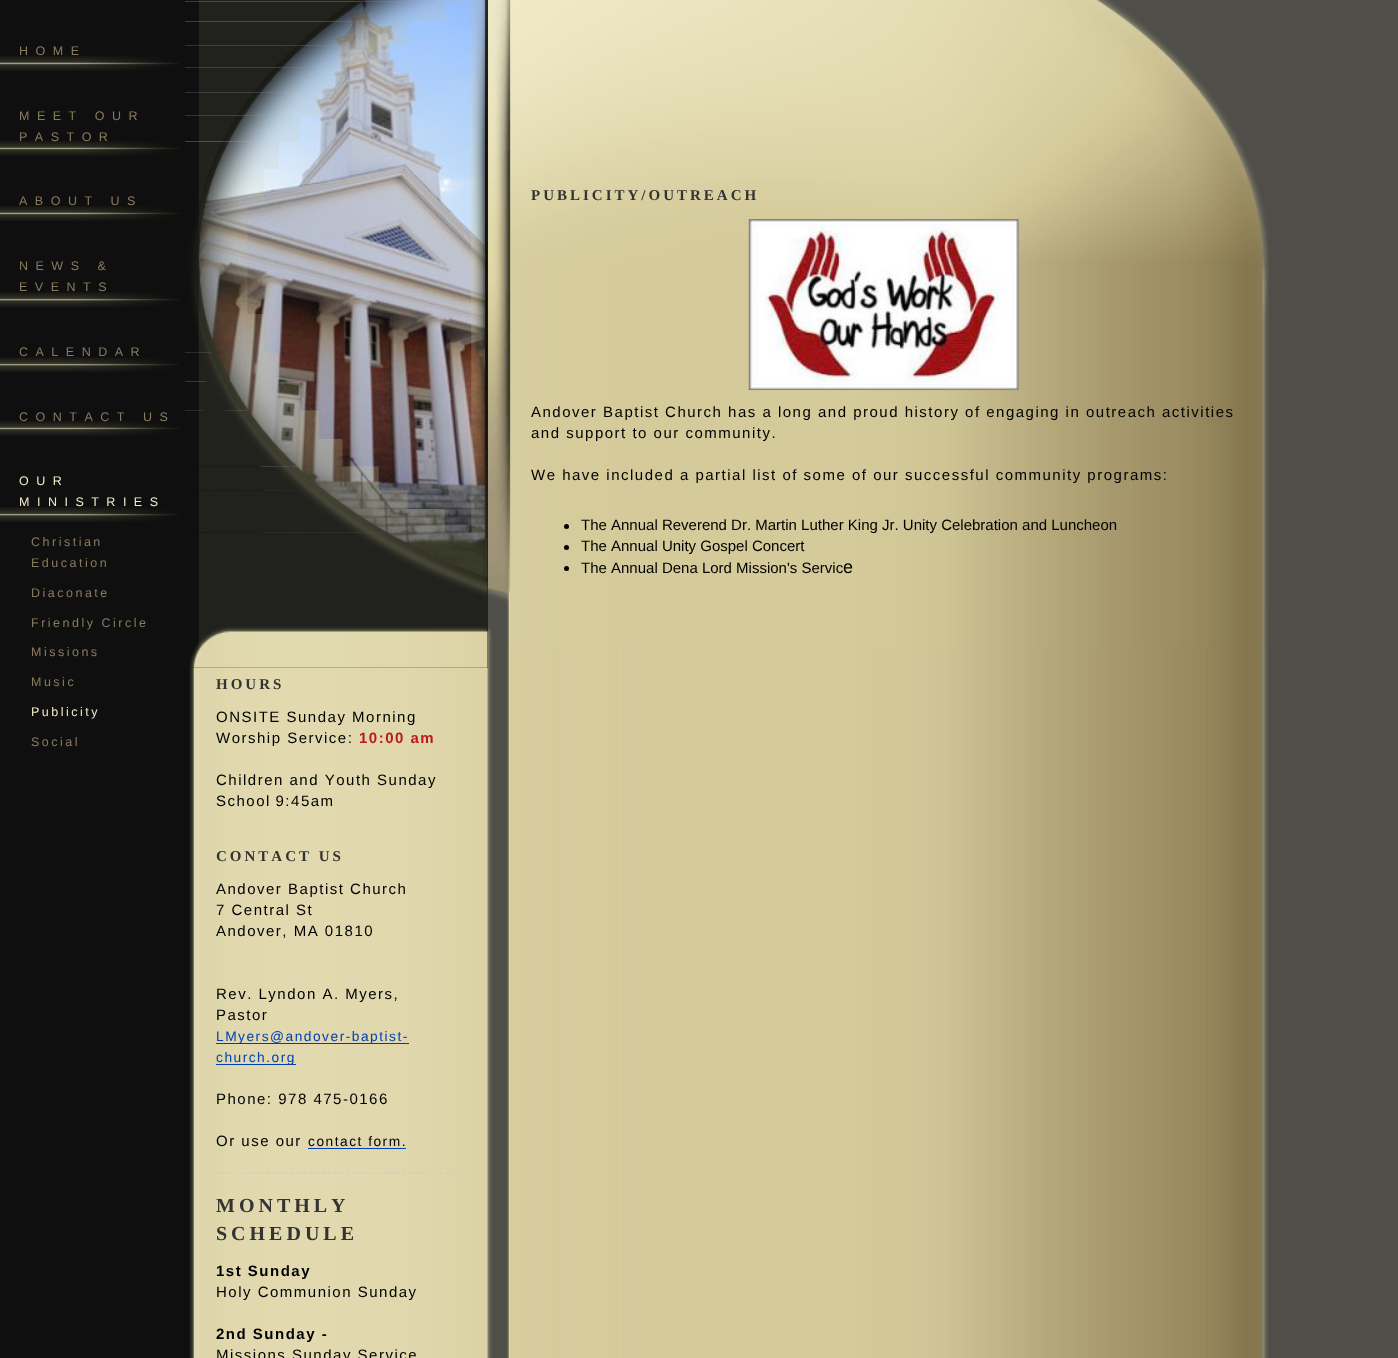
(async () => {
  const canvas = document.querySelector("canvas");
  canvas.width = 1398;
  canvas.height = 1358;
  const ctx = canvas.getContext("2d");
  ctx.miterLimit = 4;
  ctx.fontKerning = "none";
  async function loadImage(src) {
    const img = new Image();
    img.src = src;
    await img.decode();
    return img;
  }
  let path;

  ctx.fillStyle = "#4f4e49";
  ctx.fillRect(0, 0, 1398, 1358);
  ctx.drawImage(await loadImage("img/1.png"), 0, 0, 189, 1358);
  ctx.drawImage(await loadImage("img/2.png"), 0, 56, 180, 15);
  ctx.drawImage(await loadImage("img/2.png"), 0, 141, 180, 15);
  ctx.drawImage(await loadImage("img/2.png"), 0, 206, 180, 15);
  ctx.drawImage(await loadImage("img/3.png"), 0, 292, 180, 15);
  ctx.drawImage(await loadImage("img/3.png"), 0, 357, 180, 15);
  ctx.drawImage(await loadImage("img/2.png"), 0, 421, 180, 15);
  ctx.drawImage(await loadImage("img/3.png"), 0, 507, 180, 15);
  ctx.drawImage(await loadImage("img/4.png"), 189, 646, 1080, 712);
  ctx.drawImage(await loadImage("img/5.png"), 488, 0, 781, 647);
  ctx.drawImage(await loadImage("img/6.png"), 748, 219, 271, 172);
  ctx.fillStyle = "#000000";
  ctx.beginPath();
  ctx.arc(566.5, 526.5, 2.5, 0, Math.PI * 2);
  ctx.fill();
  ctx.beginPath();
  ctx.arc(566.5, 547.5, 2.5, 0, Math.PI * 2);
  ctx.fill();
  ctx.beginPath();
  ctx.arc(566.5, 568.5, 2.5, 0, Math.PI * 2);
  ctx.fill();
  ctx.fillStyle = "#21221d";
  ctx.fillRect(185, 0, 303, 668);
  ctx.drawImage(await loadImage("img/7.png"), 185, 0, 300, 577);
  ctx.drawImage(await loadImage("img/8.png"), 185, 0, 303, 2);
  ctx.drawImage(await loadImage("img/9.png"), 185, 1, 260, 21);
  ctx.drawImage(await loadImage("img/10.png"), 471, 1, 17, 532);
  ctx.drawImage(await loadImage("img/11.png"), 185, 21, 223, 25);
  ctx.drawImage(await loadImage("img/12.png"), 185, 45, 194, 23);
  ctx.drawImage(await loadImage("img/13.png"), 185, 67, 158, 26);
  ctx.drawImage(await loadImage("img/14.png"), 185, 92, 134, 24);
  ctx.drawImage(await loadImage("img/15.png"), 185, 115, 115, 27);
  ctx.drawImage(await loadImage("img/16.png"), 185, 141, 94, 28);
  ctx.drawImage(await loadImage("img/17.png"), 185, 169, 79, 35);
  ctx.drawImage(await loadImage("img/18.png"), 185, 204, 63, 110);
  ctx.drawImage(await loadImage("img/19.png"), 185, 314, 79, 39);
  ctx.drawImage(await loadImage("img/20.png"), 185, 352, 94, 30);
  ctx.drawImage(await loadImage("img/21.png"), 185, 381, 115, 30);
  ctx.drawImage(await loadImage("img/22.png"), 185, 410, 134, 29);
  ctx.drawImage(await loadImage("img/23.png"), 185, 439, 158, 28);
  ctx.drawImage(await loadImage("img/24.png"), 185, 466, 194, 25);
  ctx.drawImage(await loadImage("img/25.png"), 185, 490, 223, 19);
  ctx.drawImage(await loadImage("img/26.png"), 185, 509, 260, 24);
  ctx.drawImage(await loadImage("img/27.png"), 185, 532, 303, 136);
  for (const [x, y, w, h, color] of [
    [216, 1043, 193, 1, "#0040b6"],
    [216, 1064, 80, 1, "#0040b6"],
    [308, 1148, 98, 1, "#0040b6"],
  ]) {
    ctx.fillStyle = color;
    ctx.fillRect(x, y, w, h);
  }
  path = new Path2D("M216 1173H456");
  ctx.strokeStyle = "#cccccc";
  ctx.lineWidth = 1.2;
  ctx.setLineDash([3.75, 2.46]);
  ctx.stroke(path);
  ctx.letterSpacing = "7.5px";
  ctx.font = "12.5px Liberation Sans";
  ctx.fillStyle = "#8a7b5f";
  for (const [text, x, y] of [
    ["HOME", 19, 55],
    ["MEET OUR", 19, 120],
    ["PASTOR", 19, 141],
    ["ABOUT US", 19, 205],
    ["NEWS &", 19, 270],
    ["EVENTS", 19, 291],
    ["CALENDAR", 19, 356],
    ["CONTACT US", 19, 421],
  ]) {
    ctx.fillText(text, x, y);
  }
  ctx.fillStyle = "#f0eac7";
  ctx.fillText("OUR", 19, 485);
  ctx.fillText("MINISTRIES", 19, 506);
  ctx.letterSpacing = "2.5px";
  ctx.fillStyle = "#8a7b5f";
  for (const [text, x, y] of [
    ["Christian", 31, 546],
    ["Education", 31, 567],
    ["Diaconate", 31, 597],
    ["Friendly Circle", 31, 627],
    ["Missions", 31, 656],
    ["Music", 31, 686],
  ]) {
    ctx.fillText(text, x, y);
  }
  ctx.fillStyle = "#f0eac7";
  ctx.fillText("Publicity", 31, 716);
  ctx.fillStyle = "#8a7b5f";
  ctx.fillText("Social", 31, 746);
  ctx.letterSpacing = "3px";
  ctx.font = "bold 15px Liberation Serif";
  ctx.fillStyle = "#333333";
  ctx.fillText("PUBLICITY/OUTREACH", 531, 200);
  ctx.letterSpacing = "1.5px";
  ctx.font = "15px Liberation Sans";
  ctx.fillStyle = "#000000";
  for (const [text, x, y] of [
    ["Andover Baptist Church has a long and proud history of engaging in outreach activities", 531, 417],
    ["and support to our community.", 531, 438],
    ["We have included a partial list of some of our successful community programs:", 531, 480],
  ]) {
    ctx.fillText(text, x, y);
  }
  ctx.letterSpacing = "0px";
  for (const [text, x, y] of [
    ["The Annual Reverend Dr. Martin Luther King Jr. Unity Celebration and Luncheon", 581, 530],
    ["The Annual Unity Gospel Concert", 581, 551],
    ["The Annual Dena Lord Mission's Servic", 581, 573],
  ]) {
    ctx.fillText(text, x, y);
  }
  ctx.font = "18px Liberation Sans";
  ctx.fillText("e", 843, 573);
  ctx.letterSpacing = "3px";
  ctx.font = "bold 15px Liberation Serif";
  ctx.fillStyle = "#333333";
  ctx.fillText("HOURS", 216, 689);
  ctx.letterSpacing = "1.5px";
  ctx.font = "15px Liberation Sans";
  ctx.fillStyle = "#000000";
  ctx.fillText("ONSITE Sunday Morning", 216, 722);
  ctx.fillText("Worship Service:", 216, 743);
  ctx.font = "bold 15px Liberation Sans";
  ctx.fillStyle = "#b71c1c";
  ctx.fillText("10:00 am", 359, 743);
  ctx.font = "15px Liberation Sans";
  ctx.fillStyle = "#000000";
  ctx.fillText("Children and Youth Sunday", 216, 785);
  ctx.wordSpacing = "-1px";
  ctx.fillText("School 9:45am", 216, 806);
  ctx.letterSpacing = "3px";
  ctx.wordSpacing = "0px";
  ctx.font = "bold 15px Liberation Serif";
  ctx.fillStyle = "#333333";
  ctx.fillText("CONTACT US", 216, 861);
  ctx.letterSpacing = "1.5px";
  ctx.font = "15px Liberation Sans";
  ctx.fillStyle = "#000000";
  for (const [text, x, y] of [
    ["Andover Baptist Church", 216, 894],
    ["7 Central St", 216, 915],
    ["Andover, MA 01810", 216, 936],
    ["Rev. Lyndon A. Myers,", 216, 999],
    ["Pastor", 216, 1020],
  ]) {
    ctx.fillText(text, x, y);
  }
  ctx.font = "13.75px Liberation Sans";
  ctx.fillStyle = "#0040b6";
  ctx.fillText("LMyers@andover-baptist-", 216, 1041);
  ctx.fillText("church.org", 216, 1062);
  ctx.font = "15px Liberation Sans";
  ctx.fillStyle = "#000000";
  ctx.fillText("Phone: 978 475-0166", 216, 1104);
  ctx.fillText("Or use our", 216, 1146);
  ctx.font = "13.75px Liberation Sans";
  ctx.fillText("contact form.", 308, 1146);
  ctx.letterSpacing = "4px";
  ctx.font = "bold 20px Liberation Serif";
  ctx.fillStyle = "#333333";
  ctx.fillText("MONTHLY", 216, 1212);
  ctx.fillText("SCHEDULE", 216, 1240);
  ctx.letterSpacing = "1.5px";
  ctx.font = "bold 15px Liberation Sans";
  ctx.fillStyle = "#000000";
  ctx.fillText("1st Sunday", 216, 1276);
  ctx.font = "15px Liberation Sans";
  ctx.fillText("Holy Communion Sunday", 216, 1297);
  ctx.font = "bold 15px Liberation Sans";
  ctx.fillText("2nd Sunday -", 216, 1339);
  ctx.font = "15px Liberation Sans";
  ctx.fillText("Missions Sunday Service", 216, 1360);
})();
